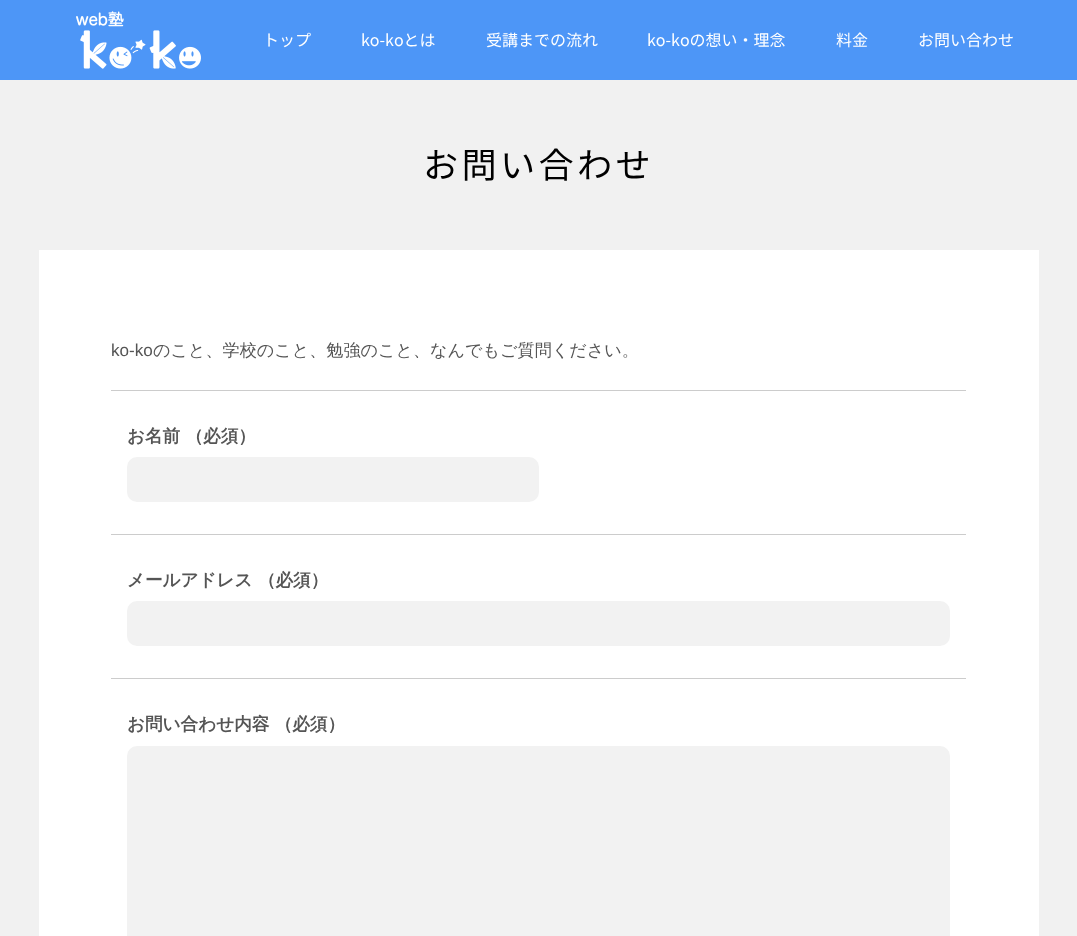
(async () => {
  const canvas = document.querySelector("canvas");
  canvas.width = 1077;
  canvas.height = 936;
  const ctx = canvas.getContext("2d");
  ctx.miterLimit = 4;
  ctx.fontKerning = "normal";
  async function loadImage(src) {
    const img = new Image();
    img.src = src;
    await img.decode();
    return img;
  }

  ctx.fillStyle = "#f1f1f1";
  ctx.fillRect(0, 0, 1077, 936);
  ctx.fillStyle = "#4d96f7";
  ctx.fillRect(0, 0, 1077, 80);
  ctx.drawImage(await loadImage("img/1.png"), 76, 11, 125, 58);
  for (const [x, y, w, h, color] of [
    [39, 250, 1000, 686, "#ffffff"],
    [111, 390, 855, 1, "#cccccc"],
    [111, 534, 855, 1, "#cccccc"],
  ]) {
    ctx.fillStyle = color;
    ctx.fillRect(x, y, w, h);
  }
  ctx.fillStyle = "#f2f2f2";
  ctx.beginPath();
  ctx.roundRect(127, 457, 412, 45, 10);
  ctx.fill();
  ctx.fillStyle = "#cccccc";
  ctx.fillRect(111, 678, 855, 1);
  ctx.fillStyle = "#f2f2f2";
  ctx.beginPath();
  ctx.roundRect(127, 601, 823, 45, 10);
  ctx.fill();
  ctx.beginPath();
  ctx.roundRect(127, 746, 823, 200, 10);
  ctx.fill();
  ctx.font = "16px Noto Sans CJK JP";
  ctx.fillStyle = "#ffffff";
  for (const [text, x, y] of [
    ["トップ", 263, 46],
    ["ko-koとは", 361, 46],
    ["受講までの流れ", 486, 46],
    ["ko-koの想い・理念", 647, 46],
    ["料金", 836, 46],
    ["お問い合わせ", 918, 46],
  ]) {
    ctx.fillText(text, x, y);
  }
  ctx.letterSpacing = "3.25px";
  ctx.font = "35.25px Noto Sans CJK JP";
  ctx.fillStyle = "#000000";
  ctx.fillText("お問い合わせ", 423, 178);
  ctx.letterSpacing = "0px";
  ctx.font = "17.1px Liberation Sans";
  ctx.fillStyle = "#555555";
  ctx.fillText("ko-ko", 111, 356);
  ctx.font = "500 17.1px WenQuanYi Zen Hei";
  ctx.fillText("のこと、学校のこと、勉強のこと、なんでもご質問ください。", 153, 356);
  ctx.font = "bold 17.6px WenQuanYi Zen Hei";
  for (const [text, x, y] of [
    ["お名前 （必須）", 127, 442],
    ["メールアドレス （必須）", 127, 586],
    ["お問い合わせ内容 （必須）", 127, 730],
  ]) {
    ctx.fillText(text, x, y);
  }
})();
